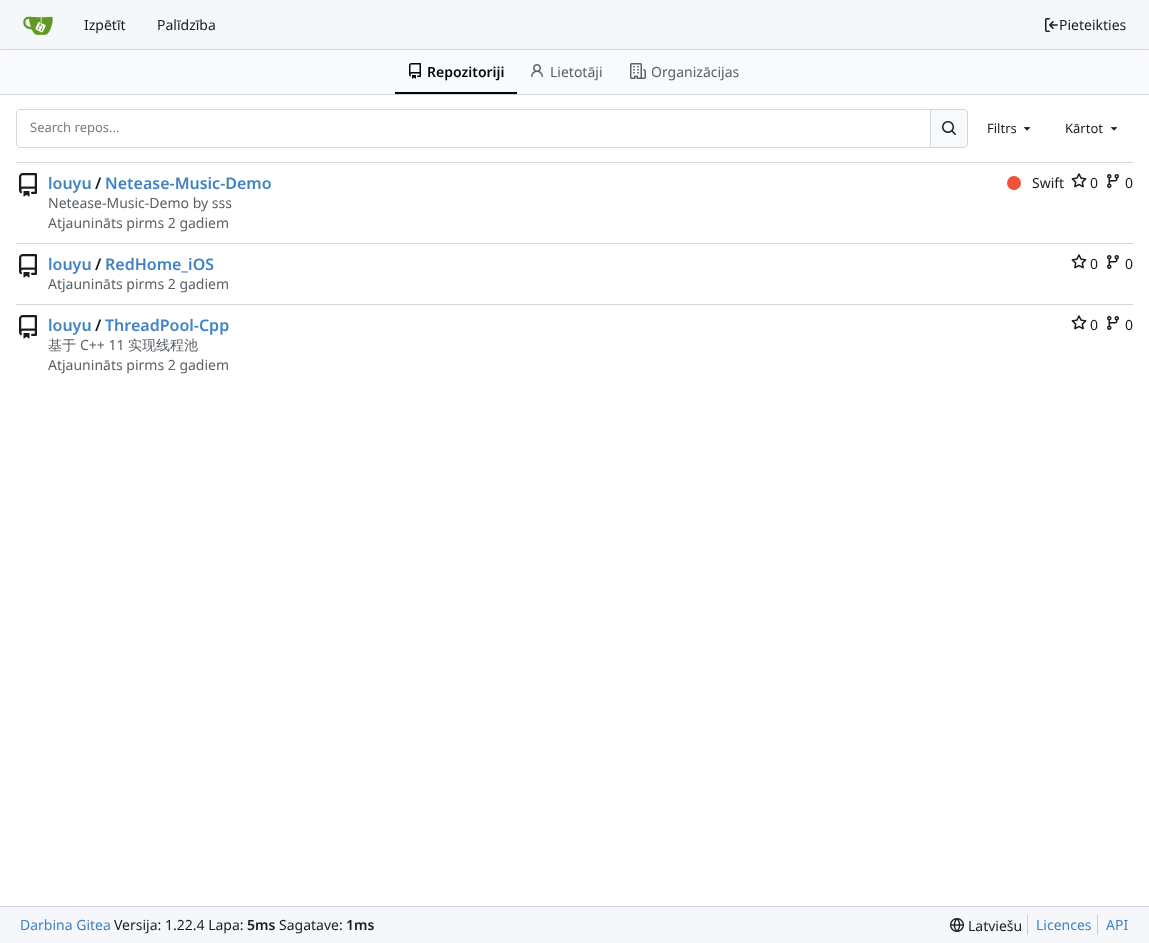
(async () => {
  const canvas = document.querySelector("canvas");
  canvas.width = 1149;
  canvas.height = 943;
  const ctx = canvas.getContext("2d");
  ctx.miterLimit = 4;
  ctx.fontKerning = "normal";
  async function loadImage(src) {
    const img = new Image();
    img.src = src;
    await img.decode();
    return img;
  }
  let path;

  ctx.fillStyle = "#ffffff";
  ctx.fillRect(0, 0, 1149, 943);
  ctx.fillStyle = "#f6f7fa";
  ctx.fillRect(0, 0, 1149, 49);
  ctx.fillStyle = "#d0d7de";
  ctx.fillRect(0, 49, 1149, 1);
  ctx.drawImage(await loadImage("img/1.png"), 23, 16, 30, 19);
  ctx.drawImage(await loadImage("img/2.png"), 1045, 18, 13, 14);
  ctx.fillStyle = "#f9fafb";
  ctx.beginPath();
  ctx.roundRect(0, 50, 1149, 45, [4, 4, 0, 0]);
  ctx.fill();
  ctx.fillStyle = "#d0d7de";
  ctx.fillRect(0, 94, 1149, 1);
  ctx.fillStyle = "#01050a";
  ctx.fillRect(395, 92, 122, 2);
  ctx.drawImage(await loadImage("img/3.png"), 409, 63, 12, 16);
  ctx.drawImage(await loadImage("img/4.png"), 531, 64, 12, 13);
  ctx.drawImage(await loadImage("img/5.png"), 630, 63, 16, 16);
  ctx.fillStyle = "#d0d7de";
  path = new Path2D("M20 109H930V148H20C18 148 16 146 16 144V113C16 111 18 109 20 109ZM20 110H930V147H20C18 147 17 146 17 144V113C17 111 18 110 20 110Z");
  ctx.fill(path, "evenodd");
  ctx.fillStyle = "#f8f9fb";
  ctx.beginPath();
  ctx.roundRect(930.5, 109.5, 37, 38, [0, 3.5, 3.5, 0]);
  ctx.fill();
  ctx.strokeStyle = "#d0d7de";
  ctx.stroke();
  ctx.drawImage(await loadImage("img/6.png"), 942, 121, 14, 14);
  ctx.drawImage(await loadImage("img/7.png"), 1023, 127, 8, 4);
  ctx.drawImage(await loadImage("img/7.png"), 1110, 127, 8, 4);
  ctx.fillStyle = "#d0d7de";
  ctx.fillRect(16, 162, 1117, 1);
  ctx.drawImage(await loadImage("img/8.png"), 19, 173, 18, 24);
  ctx.fillStyle = "#f05138";
  ctx.beginPath();
  ctx.arc(1014, 183, 7, 0, Math.PI * 2);
  ctx.fill();
  ctx.drawImage(await loadImage("img/9.png"), 1071, 173, 16, 15);
  ctx.drawImage(await loadImage("img/10.png"), 1107, 174, 12, 14);
  ctx.fillStyle = "#d0d7de";
  ctx.fillRect(16, 243, 1117, 1);
  ctx.drawImage(await loadImage("img/8.png"), 19, 254, 18, 24);
  ctx.drawImage(await loadImage("img/9.png"), 1071, 254, 16, 15);
  ctx.drawImage(await loadImage("img/10.png"), 1107, 255, 12, 14);
  ctx.fillRect(16, 304, 1117, 1);
  ctx.drawImage(await loadImage("img/8.png"), 19, 315, 18, 24);
  ctx.drawImage(await loadImage("img/9.png"), 1071, 315, 16, 15);
  ctx.drawImage(await loadImage("img/10.png"), 1107, 316, 12, 14);
  ctx.fillStyle = "#f6f7fa";
  ctx.fillRect(0, 907, 1149, 36);
  ctx.fillStyle = "#d0d7de";
  ctx.fillRect(0, 906, 1149, 1);
  ctx.drawImage(await loadImage("img/11.png"), 950, 918, 14, 14);
  ctx.fillStyle = "#c7ced5";
  ctx.fillRect(1027, 915, 1, 20);
  ctx.fillRect(1097, 915, 1, 20);
  ctx.font = "14px Noto Sans";
  ctx.fillStyle = "#181c21";
  for (const [text, x, y] of [
    ["Izpētīt", 84, 30],
    ["Palīdzība", 157, 30],
    ["Pieteikties", 1059, 30],
  ]) {
    ctx.fillText(text, x, y);
  }
  ctx.font = "600 14px Noto Sans";
  ctx.fillStyle = "#01050a";
  ctx.fillText("Repozitoriji", 427, 77);
  ctx.font = "14px Noto Sans";
  ctx.fillStyle = "#5b6167";
  ctx.fillText("Lietotāji", 550, 77);
  ctx.fillText("Organizācijas", 651, 77);
  ctx.font = "13px Noto Sans";
  ctx.fillStyle = "#747c84";
  ctx.fillText("Search repos...", 30, 132);
  ctx.fillStyle = "#181c21";
  ctx.fillText("Filtrs", 987, 133);
  ctx.fillText("Kārtot", 1065, 133);
  ctx.font = "600 16px Noto Sans";
  ctx.fillStyle = "#4183c4";
  ctx.fillText("louyu", 48, 189);
  ctx.fillStyle = "#181c21";
  ctx.fillText("/", 95, 189);
  ctx.fillStyle = "#4183c4";
  ctx.fillText("Netease-Music-Demo", 105, 189);
  ctx.font = "14px Noto Sans";
  ctx.fillStyle = "#181c21";
  for (const [text, x, y] of [
    ["Swift", 1032, 188],
    ["0", 1090, 188],
    ["0", 1125, 188],
  ]) {
    ctx.fillText(text, x, y);
  }
  ctx.fillStyle = "#5b6167";
  ctx.fillText("Netease-Music-Demo by sss", 48, 208);
  ctx.fillText("Atjaunināts pirms 2 gadiem", 48, 228);
  ctx.font = "600 16px Noto Sans";
  ctx.fillStyle = "#4183c4";
  ctx.fillText("louyu", 48, 270);
  ctx.fillStyle = "#181c21";
  ctx.fillText("/", 95, 270);
  ctx.fillStyle = "#4183c4";
  ctx.fillText("RedHome_iOS", 105, 270);
  ctx.font = "14px Noto Sans";
  ctx.fillStyle = "#181c21";
  ctx.fillText("0", 1090, 269);
  ctx.fillText("0", 1125, 269);
  ctx.fillStyle = "#5b6167";
  ctx.fillText("Atjaunināts pirms 2 gadiem", 48, 289);
  ctx.font = "600 16px Noto Sans";
  ctx.fillStyle = "#4183c4";
  ctx.fillText("louyu", 48, 331);
  ctx.fillStyle = "#181c21";
  ctx.fillText("/", 95, 331);
  ctx.fillStyle = "#4183c4";
  ctx.fillText("ThreadPool-Cpp", 105, 331);
  ctx.font = "14px Noto Sans";
  ctx.fillStyle = "#181c21";
  ctx.fillText("0", 1090, 330);
  ctx.fillText("0", 1125, 330);
  ctx.font = "500 14px WenQuanYi Zen Hei";
  ctx.fillStyle = "#5b6167";
  ctx.fillText("基于", 48, 350);
  ctx.font = "14px Noto Sans";
  ctx.fillText("C++ 11", 80, 350);
  ctx.font = "500 14px WenQuanYi Zen Hei";
  ctx.fillText("实现线程池", 128, 350);
  ctx.font = "14px Noto Sans";
  ctx.fillText("Atjaunināts pirms 2 gadiem", 48, 370);
  ctx.fillStyle = "#4183c4";
  ctx.fillText("Darbina Gitea", 20, 930);
  ctx.fillStyle = "#181c21";
  ctx.fillText("Versija: 1.22.4 Lapa:", 114, 930);
  ctx.font = "600 14px Noto Sans";
  ctx.fillText("5ms", 247, 930);
  ctx.font = "14px Noto Sans";
  ctx.fillText("Sagatave:", 279, 930);
  ctx.font = "600 14px Noto Sans";
  ctx.fillText("1ms", 346, 930);
  ctx.font = "14px Noto Sans";
  ctx.fillText("Latviešu", 968, 931);
  ctx.fillStyle = "#4183c4";
  ctx.fillText("Licences", 1036, 930);
  ctx.fillText("API", 1106, 930);
})();
